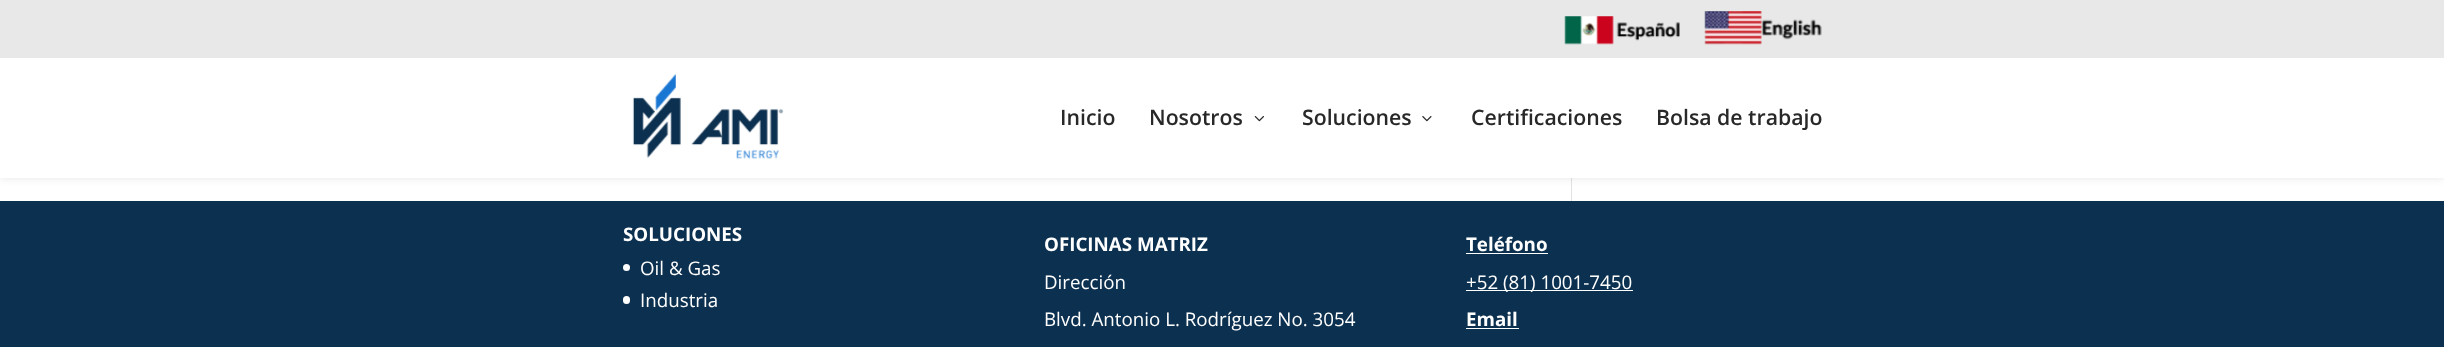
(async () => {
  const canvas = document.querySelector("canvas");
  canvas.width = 2444;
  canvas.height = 347;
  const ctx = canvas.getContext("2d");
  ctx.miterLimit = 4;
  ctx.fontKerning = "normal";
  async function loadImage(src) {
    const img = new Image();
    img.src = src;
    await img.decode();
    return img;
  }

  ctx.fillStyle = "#ffffff";
  ctx.fillRect(0, 0, 2444, 347);
  ctx.fillStyle = "#e2e2e2";
  ctx.fillRect(1571, 178, 1, 23);
  ctx.fillStyle = "rgba(0, 0, 0, 0.1)";
  ctx.filter = "blur(4.5px)";
  ctx.beginPath();
  ctx.rect(0, 58, 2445, 120);
  ctx.fill();
  ctx.filter = "none";
  ctx.fillStyle = "#e8e8e8";
  ctx.fillRect(0, 0, 2444, 58);
  ctx.drawImage(await loadImage("img/1.png"), 1564, 16, 116, 29);
  ctx.drawImage(await loadImage("img/2.png"), 1704, 11, 118, 34);
  ctx.fillStyle = "#ffffff";
  ctx.fillRect(0, 58, 2444, 120);
  ctx.drawImage(await loadImage("img/3.png"), 632, 74, 152, 85);
  ctx.drawImage(await loadImage("img/4.png"), 1254, 116, 10, 6);
  ctx.drawImage(await loadImage("img/5.png"), 1422, 116, 10, 6);
  ctx.fillStyle = "#0c304f";
  ctx.fillRect(0, 201, 2444, 146);
  ctx.fillStyle = "#ffffff";
  ctx.beginPath();
  ctx.arc(626.5, 267.5, 3.5, 0, Math.PI * 2);
  ctx.fill();
  ctx.beginPath();
  ctx.roundRect(623, 296, 7, 8, 3.5);
  ctx.fill();
  for (const [x, y, w, h, color] of [
    [1466, 253, 82, 1, "#ffffff"],
    [1466, 290, 167, 1, "#ffffff"],
    [1466, 328, 53, 1, "#ffffff"],
  ]) {
    ctx.fillStyle = color;
    ctx.fillRect(x, y, w, h);
  }
  ctx.font = "600 21.25px Open Sans";
  ctx.fillStyle = "#282828";
  for (const [text, x, y] of [
    ["Inicio", 1060, 125],
    ["Nosotros", 1149, 125],
    ["Soluciones", 1302, 125],
    ["Certificaciones", 1471, 125],
    ["Bolsa de trabajo", 1656, 125],
  ]) {
    ctx.fillText(text, x, y);
  }
  ctx.font = "bold 18.75px Open Sans";
  ctx.fillStyle = "#ffffff";
  ctx.fillText("SOLUCIONES", 623, 241);
  ctx.font = "18.75px Open Sans";
  ctx.fillText("Oil & Gas", 640, 275);
  ctx.fillText("Industria", 640, 307);
  ctx.font = "bold 18.75px Open Sans";
  ctx.fillText("OFICINAS MATRIZ", 1044, 251);
  ctx.font = "18.75px Open Sans";
  ctx.fillText("Dirección", 1044, 289);
  ctx.fillText("Blvd. Antonio L. Rodríguez No. 3054", 1044, 326);
  ctx.font = "bold 18.75px Open Sans";
  ctx.fillText("Teléfono", 1466, 251);
  ctx.font = "18.75px Open Sans";
  ctx.fillText("+52 (81) 1001-7450", 1466, 289);
  ctx.font = "bold 18.75px Open Sans";
  ctx.fillText("Email", 1466, 326);
})();
